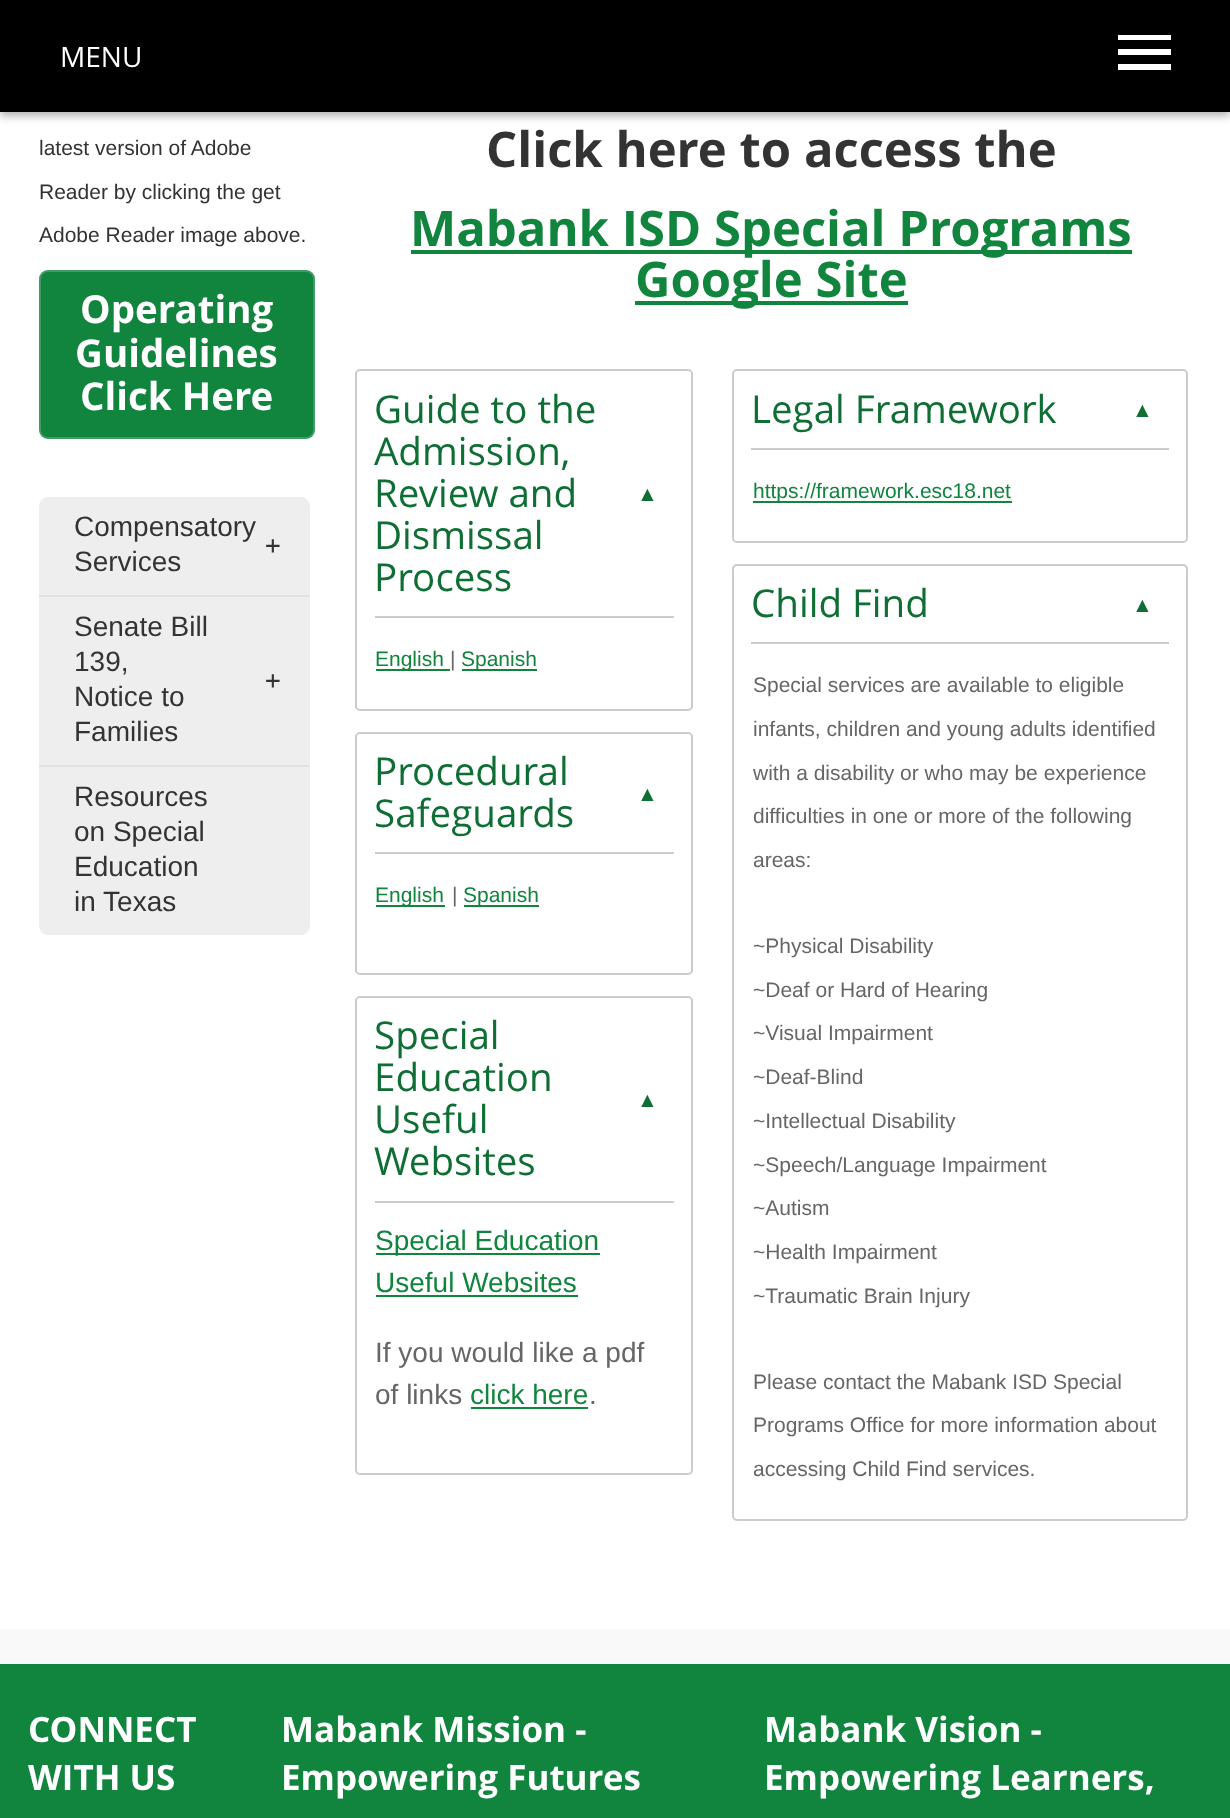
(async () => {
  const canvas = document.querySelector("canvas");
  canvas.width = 1230;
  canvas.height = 1818;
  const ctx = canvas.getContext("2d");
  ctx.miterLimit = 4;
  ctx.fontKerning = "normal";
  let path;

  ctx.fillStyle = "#11843e";
  ctx.fillRect(0, 0, 1230, 1818);
  ctx.fillStyle = "#ffffff";
  ctx.fillRect(0, 112, 1230, 1517);
  ctx.fillStyle = "rgba(0, 0, 0, 0.3)";
  ctx.filter = "blur(4.5px)";
  ctx.beginPath();
  ctx.rect(0, 4, 1230, 112);
  ctx.fill();
  ctx.filter = "none";
  ctx.fillStyle = "#000000";
  ctx.fillRect(0, 0, 1230, 112);
  ctx.fillStyle = "#ffffff";
  path = new Path2D("M1118 70V64H1171V70ZM1118 55V49H1171V55ZM1118 35H1171V40H1118Z");
  ctx.fill(path);
  ctx.fillStyle = "#f9f9f9";
  ctx.fillRect(0, 1629, 1230, 35);
  ctx.fillStyle = "#11843e";
  ctx.beginPath();
  ctx.roundRect(39, 270, 276, 169, 9);
  ctx.fill();
  ctx.beginPath();
  ctx.roundRect(40, 271, 274, 167, 8);
  ctx.strokeStyle = "rgba(255, 255, 255, 0.2)";
  ctx.lineWidth = 2;
  ctx.stroke();
  ctx.fillStyle = "#eeeeee";
  ctx.beginPath();
  ctx.roundRect(39, 497, 271, 438, 9);
  ctx.fill();
  for (const [x, y, w, h, color] of [
    [39, 595, 271, 2, "#e2e2e2"],
    [39, 765, 271, 2, "#e2e2e2"],
    [411, 250, 721, 4, "#11843e"],
    [635, 301, 273, 4, "#11843e"],
  ]) {
    ctx.fillStyle = color;
    ctx.fillRect(x, y, w, h);
  }
  ctx.beginPath();
  ctx.roundRect(356, 370, 336, 340, 4);
  ctx.strokeStyle = "#cccccc";
  ctx.stroke();
  for (const [x, y, w, h, color] of [
    [375, 616, 299, 2, "#cccccc"],
    [376, 669, 74, 2, "#11843e"],
    [462, 669, 75, 2, "#11843e"],
  ]) {
    ctx.fillStyle = color;
    ctx.fillRect(x, y, w, h);
  }
  ctx.beginPath();
  ctx.roundRect(356, 733, 336, 241, 4);
  ctx.stroke();
  for (const [x, y, w, h, color] of [
    [375, 852, 299, 2, "#cccccc"],
    [376, 905, 69, 2, "#11843e"],
    [464, 905, 75, 2, "#11843e"],
  ]) {
    ctx.fillStyle = color;
    ctx.fillRect(x, y, w, h);
  }
  ctx.beginPath();
  ctx.roundRect(356, 997, 336, 477, 4);
  ctx.stroke();
  for (const [x, y, w, h, color] of [
    [375, 1201, 299, 2, "#cccccc"],
    [376, 1253, 224, 2, "#11843e"],
    [376, 1295, 202, 2, "#11843e"],
    [471, 1407, 117, 2, "#11843e"],
  ]) {
    ctx.fillStyle = color;
    ctx.fillRect(x, y, w, h);
  }
  ctx.beginPath();
  ctx.roundRect(733, 370, 454, 172, 4);
  ctx.stroke();
  ctx.fillStyle = "#cccccc";
  ctx.fillRect(751, 448, 418, 2);
  ctx.fillStyle = "#11843e";
  ctx.fillRect(753, 501, 259, 2);
  ctx.beginPath();
  ctx.roundRect(733, 565, 454, 955, 4);
  ctx.stroke();
  ctx.fillStyle = "#cccccc";
  ctx.fillRect(751, 642, 418, 2);
  ctx.font = "28px Open Sans";
  ctx.fillStyle = "#ffffff";
  ctx.fillText("MENU", 60, 67);
  ctx.font = "21px Liberation Sans";
  ctx.fillStyle = "#333333";
  for (const [text, x, y] of [
    ["latest version of Adobe", 39, 155],
    ["Reader by clicking the get", 39, 199],
    ["Adobe Reader image above.", 39, 242],
  ]) {
    ctx.fillText(text, x, y);
  }
  ctx.font = "bold 38.5px Open Sans";
  ctx.fillStyle = "#ffffff";
  for (const [text, x, y] of [
    ["Operating", 80, 323],
    ["Guidelines", 75, 367],
    ["Click Here", 80, 410],
  ]) {
    ctx.fillText(text, x, y);
  }
  ctx.font = "28px Liberation Sans";
  ctx.fillStyle = "#333333";
  ctx.fillText("Compensatory", 74, 536);
  ctx.font = "26px DejaVu Sans Mono";
  ctx.fillText("+", 265, 554);
  ctx.font = "28px Liberation Sans";
  for (const [text, x, y] of [
    ["Services", 74, 571],
    ["Senate Bill", 74, 636],
    ["139,", 74, 671],
  ]) {
    ctx.fillText(text, x, y);
  }
  ctx.font = "26px DejaVu Sans Mono";
  ctx.fillText("+", 265, 689);
  ctx.font = "28px Liberation Sans";
  for (const [text, x, y] of [
    ["Notice to", 74, 706],
    ["Families", 74, 741],
    ["Resources", 74, 806],
    ["on Special", 74, 841],
    ["Education", 74, 876],
    ["in Texas", 74, 911],
  ]) {
    ctx.fillText(text, x, y);
  }
  ctx.font = "bold 49px Open Sans";
  ctx.fillText("Click here to access the", 486, 167);
  ctx.fillStyle = "#11843e";
  ctx.fillText("Mabank ISD Special Programs", 410, 246);
  ctx.fillText("Google Site", 635, 297);
  ctx.font = "38.5px Open Sans";
  ctx.fillStyle = "#0e6e34";
  for (const [text, x, y] of [
    ["Guide to the", 374, 423],
    ["Admission,", 374, 465],
    ["Review and", 374, 507],
  ]) {
    ctx.fillText(text, x, y);
  }
  ctx.font = "21px Liberation Sans";
  ctx.fillText("▲", 637, 501);
  ctx.font = "38.5px Open Sans";
  ctx.fillText("Dismissal", 374, 549);
  ctx.fillText("Process", 374, 591);
  ctx.font = "21px Liberation Sans";
  ctx.fillStyle = "#11843e";
  ctx.fillText("English", 375, 666);
  ctx.fillStyle = "#666666";
  ctx.fillText("|", 450, 666);
  ctx.fillStyle = "#11843e";
  ctx.fillText("Spanish", 461, 666);
  ctx.font = "38.5px Open Sans";
  ctx.fillStyle = "#0e6e34";
  ctx.fillText("Procedural", 374, 785);
  ctx.font = "21px Liberation Sans";
  ctx.fillText("▲", 637, 801);
  ctx.font = "38.5px Open Sans";
  ctx.fillText("Safeguards", 374, 827);
  ctx.font = "21px Liberation Sans";
  ctx.fillStyle = "#11843e";
  ctx.fillText("English", 375, 902);
  ctx.fillStyle = "#666666";
  ctx.fillText("|", 452, 902);
  ctx.fillStyle = "#11843e";
  ctx.fillText("Spanish", 463, 902);
  ctx.font = "38.5px Open Sans";
  ctx.fillStyle = "#0e6e34";
  ctx.fillText("Special", 374, 1049);
  ctx.fillText("Education", 374, 1091);
  ctx.font = "21px Liberation Sans";
  ctx.fillText("▲", 637, 1107);
  ctx.font = "38.5px Open Sans";
  ctx.fillText("Useful", 374, 1133);
  ctx.fillText("Websites", 374, 1175);
  ctx.font = "28px Liberation Sans";
  ctx.fillStyle = "#11843e";
  ctx.fillText("Special Education", 375, 1250);
  ctx.fillText("Useful Websites", 375, 1292);
  ctx.fillStyle = "#666666";
  ctx.fillText("If you would like a pdf", 375, 1362);
  ctx.fillText("of links", 375, 1404);
  ctx.fillStyle = "#11843e";
  ctx.fillText("click here", 470, 1404);
  ctx.fillStyle = "#666666";
  ctx.fillText(".", 589, 1404);
  ctx.font = "38.5px Open Sans";
  ctx.fillStyle = "#0e6e34";
  ctx.fillText("Legal Framework", 751, 423);
  ctx.font = "21px Liberation Sans";
  ctx.fillText("▲", 1132, 417);
  ctx.fillStyle = "#11843e";
  ctx.fillText("https://framework.esc18.net", 753, 498);
  ctx.font = "38.5px Open Sans";
  ctx.fillStyle = "#0e6e34";
  ctx.fillText("Child Find", 751, 617);
  ctx.font = "21px Liberation Sans";
  ctx.fillText("▲", 1132, 612);
  ctx.fillStyle = "#666666";
  for (const [text, x, y] of [
    ["Special services are available to eligible", 753, 692],
    ["infants, children and young adults identified", 753, 736],
    ["with a disability or who may be experience", 753, 780],
    ["difficulties in one or more of the following", 753, 823],
    ["areas:", 753, 867],
    ["~Physical Disability", 753, 953],
    ["~Deaf or Hard of Hearing", 753, 997],
    ["~Visual Impairment", 753, 1040],
    ["~Deaf-Blind", 753, 1084],
    ["~Intellectual Disability", 753, 1128],
    ["~Speech/Language Impairment", 753, 1172],
    ["~Autism", 753, 1215],
    ["~Health Impairment", 753, 1259],
    ["~Traumatic Brain Injury", 753, 1303],
    ["Please contact the Mabank ISD Special", 753, 1389],
    ["Programs Office for more information about", 753, 1432],
    ["accessing Child Find services.", 753, 1476],
  ]) {
    ctx.fillText(text, x, y);
  }
  ctx.font = "bold 35px Open Sans";
  ctx.fillStyle = "#ffffff";
  for (const [text, x, y] of [
    ["CONNECT", 28, 1742],
    ["WITH US", 28, 1790],
    ["Mabank Mission -", 281, 1742],
    ["Empowering Futures", 281, 1790],
    ["Mabank Vision -", 764, 1742],
    ["Empowering Learners,", 764, 1790],
  ]) {
    ctx.fillText(text, x, y);
  }
})();
